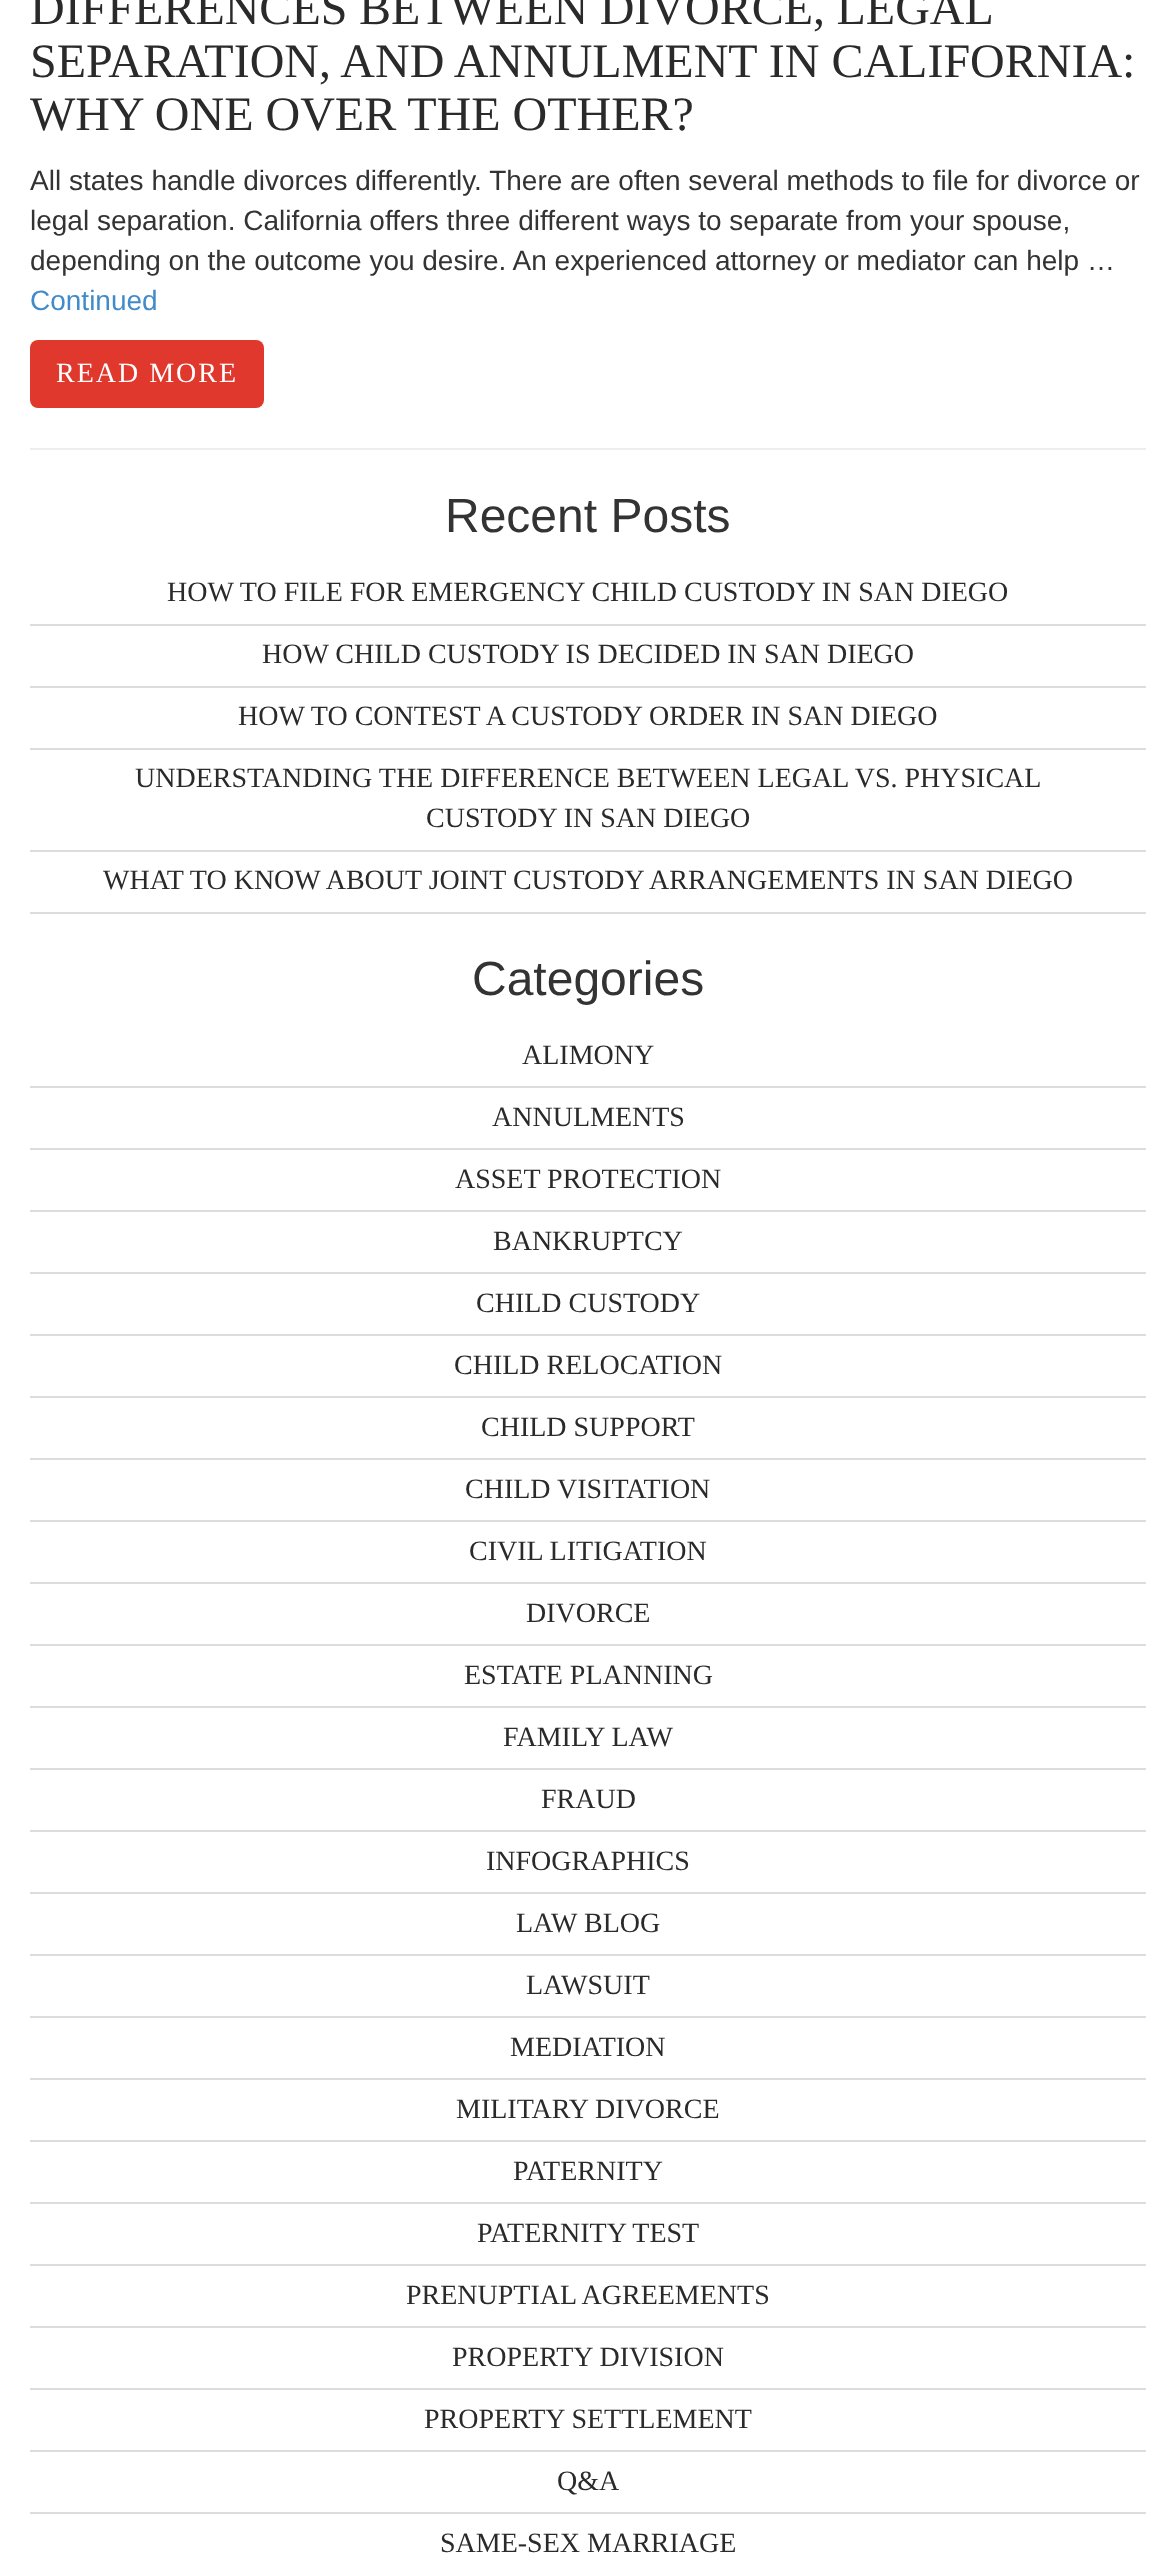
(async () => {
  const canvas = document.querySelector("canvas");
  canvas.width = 1175;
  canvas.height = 2573;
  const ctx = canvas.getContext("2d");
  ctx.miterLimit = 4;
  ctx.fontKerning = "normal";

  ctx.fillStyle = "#ffffff";
  ctx.fillRect(0, 0, 1175, 2573);
  ctx.fillStyle = "#e0382d";
  ctx.beginPath();
  ctx.roundRect(30, 340, 234, 68, 8);
  ctx.fill();
  for (const [x, y, w, h, color] of [
    [30, 448, 1116, 2, "#eeeeee"],
    [30, 624, 1116, 2, "#dcdcdc"],
    [30, 686, 1116, 2, "#dcdcdc"],
    [30, 748, 1116, 2, "#dcdcdc"],
    [30, 850, 1116, 2, "#dcdcdc"],
    [30, 912, 1116, 2, "#dcdcdc"],
    [30, 1086, 1116, 2, "#dcdcdc"],
    [30, 1148, 1116, 2, "#dcdcdc"],
    [30, 1210, 1116, 2, "#dcdcdc"],
    [30, 1272, 1116, 2, "#dcdcdc"],
    [30, 1334, 1116, 2, "#dcdcdc"],
    [30, 1396, 1116, 2, "#dcdcdc"],
    [30, 1458, 1116, 2, "#dcdcdc"],
    [30, 1520, 1116, 2, "#dcdcdc"],
    [30, 1582, 1116, 2, "#dcdcdc"],
    [30, 1644, 1116, 2, "#dcdcdc"],
    [30, 1706, 1116, 2, "#dcdcdc"],
    [30, 1768, 1116, 2, "#dcdcdc"],
    [30, 1830, 1116, 2, "#dcdcdc"],
    [30, 1892, 1116, 2, "#dcdcdc"],
    [30, 1954, 1116, 2, "#dcdcdc"],
    [30, 2016, 1116, 2, "#dcdcdc"],
    [30, 2078, 1116, 2, "#dcdcdc"],
    [30, 2140, 1116, 2, "#dcdcdc"],
    [30, 2202, 1116, 2, "#dcdcdc"],
    [30, 2264, 1116, 2, "#dcdcdc"],
    [30, 2326, 1116, 2, "#dcdcdc"],
    [30, 2388, 1116, 2, "#dcdcdc"],
    [30, 2450, 1116, 2, "#dcdcdc"],
    [30, 2512, 1116, 2, "#dcdcdc"],
  ]) {
    ctx.fillStyle = color;
    ctx.fillRect(x, y, w, h);
  }
  ctx.wordSpacing = "-0.5px";
  ctx.font = "48px Liberation Serif";
  ctx.fillStyle = "#2a2a2a";
  ctx.fillText("DIFFERENCES BETWEEN DIVORCE, LEGAL", 30, 24);
  ctx.wordSpacing = "0px";
  ctx.fillText("SEPARATION, AND ANNULMENT IN CALIFORNIA:", 30, 77);
  ctx.fillText("WHY ONE OVER THE OTHER?", 30, 130);
  ctx.font = "28px Liberation Sans";
  ctx.fillStyle = "#333333";
  for (const [text, x, y] of [
    ["All states handle divorces differently. There are often several methods to file for divorce or", 30, 190],
    ["legal separation. California offers three different ways to separate from your spouse,", 30, 230],
    ["depending on the outcome you desire. An experienced attorney or mediator can help …", 30, 270],
  ]) {
    ctx.fillText(text, x, y);
  }
  ctx.fillStyle = "#428bca";
  ctx.fillText("Continued", 30, 310);
  ctx.letterSpacing = "2px";
  ctx.font = "28px Liberation Serif";
  ctx.fillStyle = "#ffffff";
  ctx.fillText("READ MORE", 56, 382);
  ctx.letterSpacing = "0px";
  ctx.font = "48px Liberation Sans";
  ctx.fillStyle = "#333333";
  ctx.fillText("Recent Posts", 445, 532);
  ctx.font = "28px Liberation Serif";
  ctx.fillStyle = "#2a2a2a";
  for (const [text, x, y] of [
    ["HOW TO FILE FOR EMERGENCY CHILD CUSTODY IN SAN DIEGO", 167, 601],
    ["HOW CHILD CUSTODY IS DECIDED IN SAN DIEGO", 262, 663],
    ["HOW TO CONTEST A CUSTODY ORDER IN SAN DIEGO", 238, 725],
    ["UNDERSTANDING THE DIFFERENCE BETWEEN LEGAL VS. PHYSICAL", 135, 787],
    ["CUSTODY IN SAN DIEGO", 426, 827],
    ["WHAT TO KNOW ABOUT JOINT CUSTODY ARRANGEMENTS IN SAN DIEGO", 103, 889],
  ]) {
    ctx.fillText(text, x, y);
  }
  ctx.font = "48px Liberation Sans";
  ctx.fillStyle = "#333333";
  ctx.fillText("Categories", 472, 995);
  ctx.font = "28px Liberation Serif";
  ctx.fillStyle = "#2a2a2a";
  for (const [text, x, y] of [
    ["ALIMONY", 522, 1064],
    ["ANNULMENTS", 492, 1126],
    ["ASSET PROTECTION", 455, 1188],
    ["BANKRUPTCY", 493, 1250],
    ["CHILD CUSTODY", 476, 1312],
    ["CHILD RELOCATION", 454, 1374],
    ["CHILD SUPPORT", 481, 1436],
    ["CHILD VISITATION", 465, 1498],
    ["CIVIL LITIGATION", 469, 1560],
    ["DIVORCE", 526, 1622],
    ["ESTATE PLANNING", 464, 1684],
    ["FAMILY LAW", 503, 1746],
    ["FRAUD", 541, 1808],
    ["INFOGRAPHICS", 486, 1870],
    ["LAW BLOG", 516, 1932],
    ["LAWSUIT", 526, 1994],
    ["MEDIATION", 510, 2056],
    ["MILITARY DIVORCE", 456, 2118],
    ["PATERNITY", 513, 2180],
    ["PATERNITY TEST", 477, 2242],
    ["PRENUPTIAL AGREEMENTS", 406, 2304],
    ["PROPERTY DIVISION", 452, 2366],
    ["PROPERTY SETTLEMENT", 424, 2428],
    ["Q&A", 557, 2490],
    ["SAME-SEX MARRIAGE", 440, 2552],
  ]) {
    ctx.fillText(text, x, y);
  }
})();
